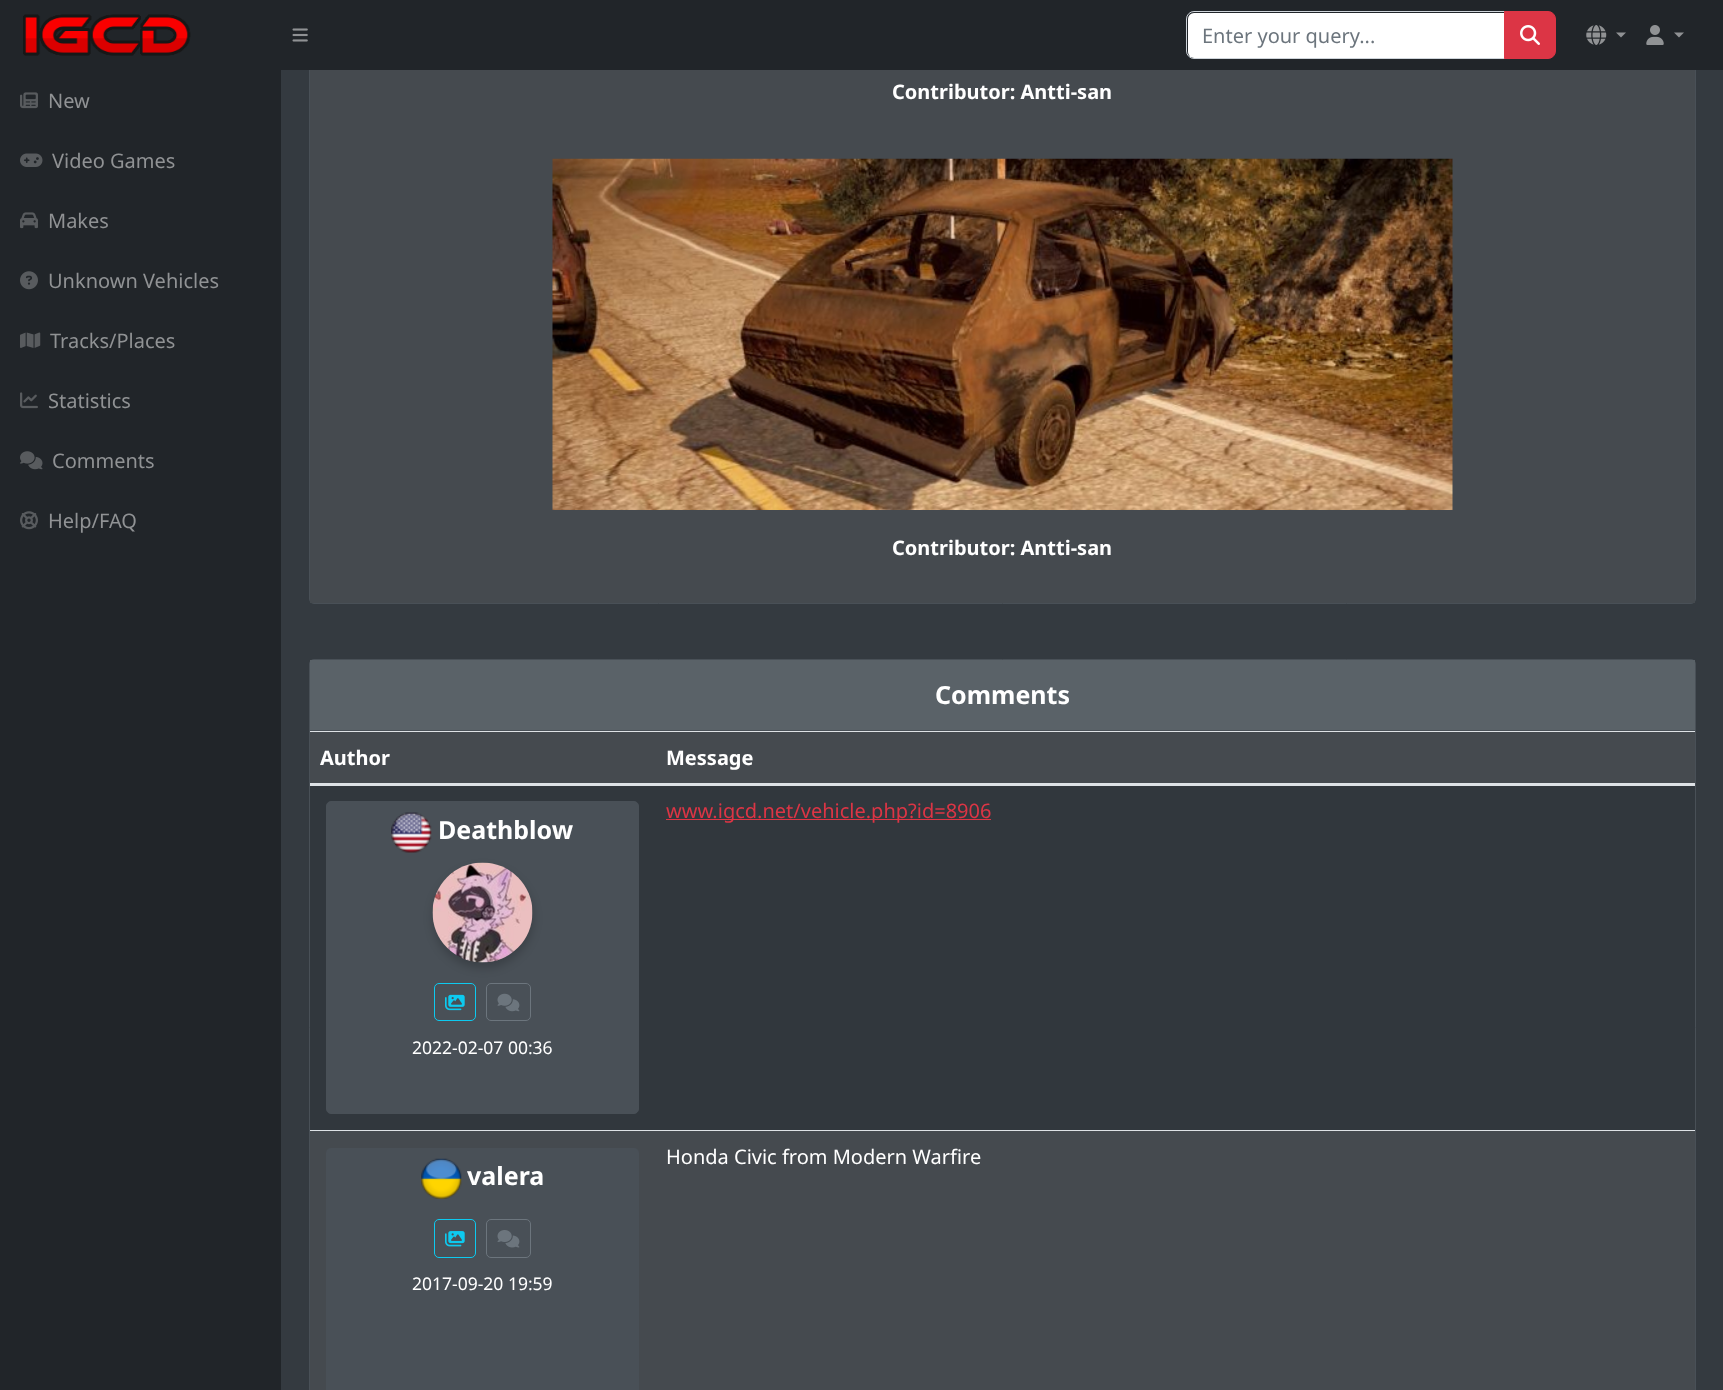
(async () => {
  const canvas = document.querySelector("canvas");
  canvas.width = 1723;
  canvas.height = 1390;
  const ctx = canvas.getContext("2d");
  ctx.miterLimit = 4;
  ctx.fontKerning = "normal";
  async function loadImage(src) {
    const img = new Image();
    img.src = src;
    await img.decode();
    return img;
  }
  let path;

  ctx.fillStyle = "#343a40";
  ctx.fillRect(0, 0, 1723, 1390);
  ctx.beginPath();
  ctx.roundRect(309.5, -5.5, 1386, 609, 4.5);
  ctx.strokeStyle = "#495057";
  ctx.stroke();
  ctx.fillStyle = "#212529";
  ctx.fillRect(0, 0, 1723, 70);
  ctx.drawImage(await loadImage("img/1.png"), 23, 14, 168, 42);
  ctx.drawImage(await loadImage("img/2.png"), 292, 28, 16, 14);
  ctx.fillStyle = "#ffffff";
  ctx.beginPath();
  ctx.roundRect(1188, 13, 316, 45, [6, 0, 0, 6]);
  ctx.fill();
  ctx.beginPath();
  ctx.roundRect(1186.5, 11.5, 318, 47, [7.5, 0, 0, 7.5]);
  ctx.strokeStyle = "#ced4da";
  ctx.stroke();
  ctx.fillStyle = "#dc3545";
  ctx.beginPath();
  ctx.roundRect(1504.5, 11.5, 51, 47, [0, 7.5, 7.5, 0]);
  ctx.fill();
  ctx.strokeStyle = "#dc3545";
  ctx.stroke();
  ctx.drawImage(await loadImage("img/3.png"), 1520, 25, 20, 20);
  ctx.drawImage(await loadImage("img/4.png"), 1586, 25, 21, 20);
  ctx.fillStyle = "#909294";
  path = new Path2D("M1616 32.5H1626L1621 37.5Z");
  ctx.fill(path);
  ctx.drawImage(await loadImage("img/5.png"), 1646, 25, 18, 20);
  path = new Path2D("M1674 32.5H1684L1679 37.5Z");
  ctx.fill(path);
  ctx.fillStyle = "#212529";
  ctx.fillRect(0, 70, 281, 1320);
  ctx.drawImage(await loadImage("img/6.png"), 20, 92, 18, 17);
  ctx.drawImage(await loadImage("img/7.png"), 20, 153, 23, 14);
  ctx.drawImage(await loadImage("img/8.png"), 20, 212, 18, 17);
  ctx.drawImage(await loadImage("img/9.png"), 20, 271, 18, 19);
  ctx.drawImage(await loadImage("img/10.png"), 20, 332, 21, 16);
  ctx.drawImage(await loadImage("img/11.png"), 20, 392, 18, 17);
  ctx.drawImage(await loadImage("img/12.png"), 20, 451, 23, 19);
  ctx.drawImage(await loadImage("img/13.png"), 20, 511, 18, 19);
  ctx.fillStyle = "#454a4f";
  ctx.fillRect(310, 70, 1385, 533);
  ctx.drawImage(await loadImage("img/14.png"), 552, 158, 901, 352);
  ctx.beginPath();
  ctx.roundRect(309.5, 659.5, 1386, 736, 4.5);
  ctx.fill();
  ctx.strokeStyle = "#495057";
  ctx.stroke();
  for (const [x, y, w, h, color] of [
    [310, 660, 1385, 70, "#5a6268"],
    [310, 730, 1385, 1, "#495057"],
    [310, 731, 1385, 1, "#dee2e6"],
    [310, 783, 1385, 3, "#dee2e6"],
    [310, 786, 1385, 344, "#31373d"],
    [666, 819, 325, 1, "#dc3545"],
  ]) {
    ctx.fillStyle = color;
    ctx.fillRect(x, y, w, h);
  }
  ctx.fillStyle = "#495057";
  ctx.beginPath();
  ctx.roundRect(326.5, 801.5, 312, 312, 4.5);
  ctx.fill();
  ctx.stroke();
  ctx.fillStyle = "rgba(0, 0, 0, 0.2)";
  ctx.filter = "blur(5px)";
  ctx.beginPath();
  ctx.roundRect(433, 868, 100, 100, 50);
  ctx.fill();
  ctx.filter = "none";
  ctx.drawImage(await loadImage("img/15.png"), 391, 812, 41, 41);
  ctx.drawImage(await loadImage("img/16.png"), 432, 862, 101, 101);
  ctx.beginPath();
  ctx.roundRect(434.5, 983.5, 41, 37, 4.5);
  ctx.strokeStyle = "#0dcaf0";
  ctx.stroke();
  ctx.drawImage(await loadImage("img/17.png"), 445, 994, 20, 17);
  ctx.beginPath();
  ctx.roundRect(486.5, 983.5, 44, 37, 4.5);
  ctx.strokeStyle = "#6c757d";
  ctx.stroke();
  ctx.drawImage(await loadImage("img/18.png"), 497, 993, 23, 19);
  ctx.fillStyle = "#dee2e6";
  ctx.fillRect(310, 1130, 1385, 1);
  ctx.fillStyle = "#495057";
  ctx.beginPath();
  ctx.roundRect(326, 1148, 313, 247, 5);
  ctx.fill();
  ctx.drawImage(await loadImage("img/19.png"), 421, 1158, 41, 41);
  ctx.beginPath();
  ctx.roundRect(434.5, 1219.5, 41, 38, 4.5);
  ctx.strokeStyle = "#0dcaf0";
  ctx.stroke();
  ctx.drawImage(await loadImage("img/20.png"), 445, 1231, 20, 16);
  ctx.beginPath();
  ctx.roundRect(486.5, 1219.5, 44, 38, 4.5);
  ctx.strokeStyle = "#6c757d";
  ctx.stroke();
  ctx.drawImage(await loadImage("img/21.png"), 497, 1230, 23, 18);
  ctx.font = "20px Noto Sans";
  ctx.fillStyle = "#6c757d";
  ctx.fillText("Enter your query...", 1202, 43);
  ctx.fillStyle = "#909294";
  for (const [text, x, y] of [
    ["New", 48, 108],
    ["Video Games", 52, 168],
    ["Makes", 48, 228],
    ["Unknown Vehicles", 48, 288],
    ["Tracks/Places", 50, 348],
    ["Statistics", 48, 408],
    ["Comments", 52, 468],
    ["Help/FAQ", 48, 528],
  ]) {
    ctx.fillText(text, x, y);
  }
  ctx.font = "bold 20px Noto Sans";
  ctx.fillStyle = "#ffffff";
  ctx.fillText("Contributor: Antti-san", 892, 99);
  ctx.fillText("Contributor: Antti-san", 892, 555);
  ctx.font = "bold 25px Noto Sans";
  ctx.fillText("Comments", 935, 704);
  ctx.font = "bold 20px Noto Sans";
  ctx.fillText("Author", 320, 765);
  ctx.fillText("Message", 666, 765);
  ctx.font = "20px Noto Sans";
  ctx.fillStyle = "#dc3545";
  ctx.fillText("www.igcd.net/vehicle.php?id=8906", 666, 818);
  ctx.font = "bold 25px Noto Sans";
  ctx.fillStyle = "#ffffff";
  ctx.fillText("Deathblow", 438, 839);
  ctx.font = "17.5px Noto Sans";
  ctx.fillText("2022-02-07 00:36", 412, 1054);
  ctx.font = "20px Noto Sans";
  ctx.fillText("Honda Civic from Modern Warfire", 666, 1164);
  ctx.font = "bold 25px Noto Sans";
  ctx.fillText("valera", 467, 1185);
  ctx.font = "17.5px Noto Sans";
  ctx.fillText("2017-09-20 19:59", 412, 1290);
})();
